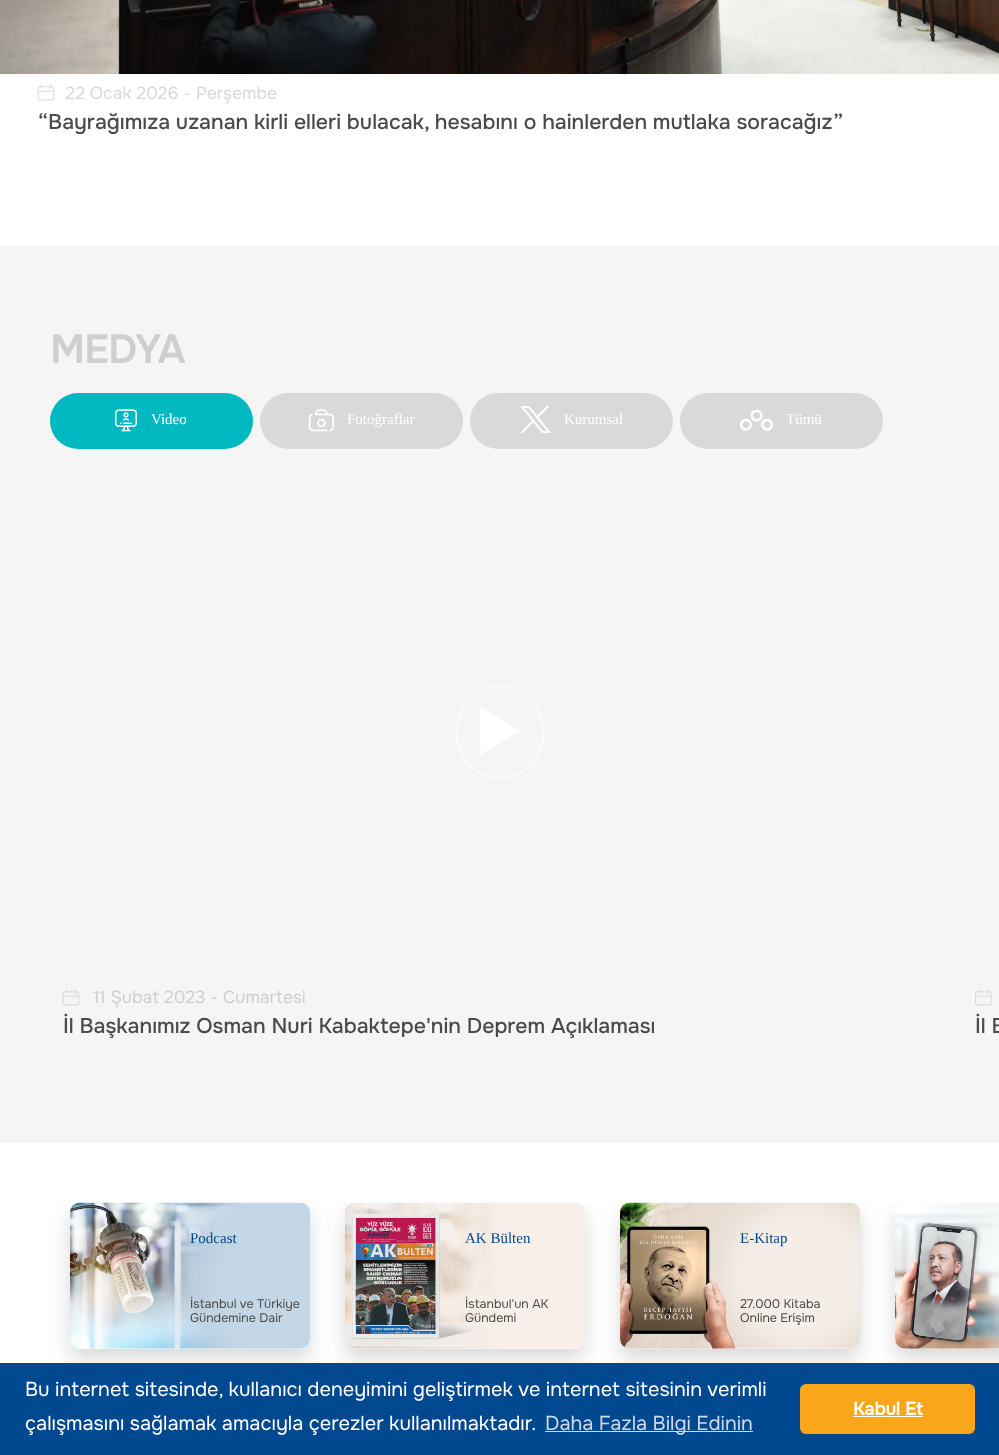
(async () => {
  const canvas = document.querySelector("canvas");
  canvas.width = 999;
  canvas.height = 1455;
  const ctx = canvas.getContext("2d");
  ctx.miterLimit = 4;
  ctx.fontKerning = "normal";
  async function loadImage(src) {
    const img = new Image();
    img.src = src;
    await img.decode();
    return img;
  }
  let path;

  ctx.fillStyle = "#ffffff";
  ctx.fillRect(0, 0, 999, 1455);
  ctx.drawImage(await loadImage("img/1.png"), 0, 0, 999, 74);
  ctx.drawImage(await loadImage("img/2.png"), 37, 83, 18, 18);
  ctx.fillStyle = "#f5f5f5";
  ctx.fillRect(0, 246, 999, 897);
  ctx.fillStyle = "#00b8bf";
  ctx.beginPath();
  ctx.roundRect(50, 393, 203, 56, 28);
  ctx.fill();
  ctx.drawImage(await loadImage("img/3.png"), 115, 409, 22, 23);
  ctx.fillStyle = "#d9d9d9";
  ctx.beginPath();
  ctx.roundRect(260, 393, 203, 56, 28);
  ctx.fill();
  ctx.drawImage(await loadImage("img/4.png"), 308, 409, 26, 23);
  ctx.beginPath();
  ctx.roundRect(470, 393, 203, 56, 28);
  ctx.fill();
  ctx.drawImage(await loadImage("img/5.png"), 520, 406, 31, 27);
  ctx.beginPath();
  ctx.roundRect(680, 393, 203, 56, 28);
  ctx.fill();
  ctx.drawImage(await loadImage("img/6.png"), 740, 409, 33, 22);
  path = new Path2D("M500 687C524 687 543 707.5 543 732.5C543 757.5 524 778 500 778C476 778 457 757.5 457 732.5C457 707.5 476 687 500 687Z");
  ctx.strokeStyle = "#ffffff";
  ctx.lineWidth = 1.2;
  ctx.stroke(path);
  ctx.fillStyle = "#ffffff";
  path = new Path2D("M480 731V707L521 731L480 755Z");
  ctx.fill(path);
  ctx.drawImage(await loadImage("img/7.png"), 62, 988, 18, 18);
  ctx.drawImage(await loadImage("img/8.png"), 975, 988, 17, 18);
  ctx.save();
  ctx.beginPath();
  ctx.rect(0, 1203, 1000, 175);
  ctx.clip();
  ctx.fillStyle = "rgba(0, 0, 0, 0.15)";
  ctx.filter = "blur(10px)";
  ctx.beginPath();
  ctx.roundRect(70, 1213, 240, 146, 10);
  ctx.fill();
  ctx.filter = "none";
  ctx.restore();
  ctx.beginPath();
  ctx.roundRect(70, 1203, 240, 146, 10);
  ctx.fill();
  ctx.drawImage(await loadImage("img/9.png"), 70, 1202, 240, 147);
  ctx.save();
  ctx.beginPath();
  ctx.rect(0, 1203, 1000, 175);
  ctx.clip();
  ctx.fillStyle = "rgba(0, 0, 0, 0.15)";
  ctx.filter = "blur(10px)";
  ctx.beginPath();
  ctx.roundRect(345, 1213, 240, 146, 10);
  ctx.fill();
  ctx.filter = "none";
  ctx.restore();
  ctx.beginPath();
  ctx.roundRect(345, 1203, 240, 146, 10);
  ctx.fill();
  ctx.drawImage(await loadImage("img/10.png"), 345, 1202, 240, 147);
  ctx.save();
  ctx.beginPath();
  ctx.rect(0, 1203, 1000, 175);
  ctx.clip();
  ctx.fillStyle = "rgba(0, 0, 0, 0.15)";
  ctx.filter = "blur(10px)";
  ctx.beginPath();
  ctx.roundRect(620, 1213, 240, 146, 10);
  ctx.fill();
  ctx.filter = "none";
  ctx.restore();
  ctx.beginPath();
  ctx.roundRect(620, 1203, 240, 146, 10);
  ctx.fill();
  ctx.drawImage(await loadImage("img/11.png"), 620, 1202, 240, 147);
  ctx.save();
  ctx.beginPath();
  ctx.rect(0, 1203, 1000, 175);
  ctx.clip();
  ctx.fillStyle = "rgba(0, 0, 0, 0.15)";
  ctx.filter = "blur(10px)";
  ctx.beginPath();
  ctx.roundRect(895, 1213, 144, 146, 10);
  ctx.fill();
  ctx.filter = "none";
  ctx.restore();
  path = new Path2D("M905 1203H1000V1349H905C899.5 1349 895 1344.5 895 1339V1213C895 1207.5 899.5 1203 905 1203Z");
  ctx.fill(path);
  ctx.drawImage(await loadImage("img/12.png"), 895, 1203, 104, 146);
  ctx.fillStyle = "#00488f";
  ctx.fillRect(0, 1363, 999, 92);
  ctx.fillStyle = "#ccdae9";
  ctx.fillRect(545, 1431, 208, 1);
  ctx.fillStyle = "#faa61a";
  ctx.beginPath();
  ctx.roundRect(800, 1384, 175, 50, 6);
  ctx.fill();
  ctx.fillStyle = "#ffffff";
  ctx.fillRect(853, 1416, 70, 1);
  ctx.font = "17.5px Onest";
  ctx.fillStyle = "#d9d9d9";
  ctx.fillText("22 Ocak 2026 - Perşembe", 65, 99);
  ctx.font = "500 21.25px Onest";
  ctx.fillStyle = "#4a4a4a";
  ctx.fillText("“Bayrağımıza uzanan kirli elleri bulacak, hesabını o hainlerden mutlaka soracağız”", 38, 129);
  ctx.font = "bold 39px Onest";
  ctx.fillStyle = "#cfcfcf";
  ctx.fillText("MEDYA", 50, 363);
  ctx.font = "15px Liberation Serif";
  ctx.fillStyle = "#ffffff";
  for (const [text, x, y] of [
    ["Video", 151, 424],
    ["Fotoğraflar", 347, 424],
    ["Kurumsal", 564, 424],
    ["Tümü", 786, 424],
  ]) {
    ctx.fillText(text, x, y);
  }
  ctx.font = "17.5px Onest";
  ctx.fillStyle = "#cfcfcf";
  ctx.fillText("11 Şubat 2023 - Cumartesi", 93, 1003);
  ctx.save();
  ctx.beginPath();
  ctx.roundRect(44, 493, 912, 545, 10);
  ctx.clip();
  ctx.font = "500 21.25px Onest";
  ctx.fillStyle = "#4a4a4a";
  ctx.fillText("İl Başkanımız Osman Nuri Kabaktepe'nin Deprem Açıklaması", 63, 1033);
  ctx.restore();
  ctx.font = "500 21.25px Onest";
  ctx.fillStyle = "#4a4a4a";
  ctx.fillText("İl B", 975, 1033);
  ctx.font = "15px Liberation Serif";
  ctx.fillStyle = "#00488f";
  ctx.fillText("Podcast", 190, 1243);
  ctx.font = "12.5px Onest";
  ctx.fillStyle = "#4a4a4a";
  ctx.fillText("İstanbul ve Türkiye", 190, 1308);
  ctx.fillText("Gündemine Dair", 190, 1322);
  ctx.font = "15px Liberation Serif";
  ctx.fillStyle = "#00488f";
  ctx.fillText("AK Bülten", 465, 1243);
  ctx.font = "12.5px Onest";
  ctx.fillStyle = "#4a4a4a";
  ctx.fillText("İstanbul'un AK", 465, 1308);
  ctx.fillText("Gündemi", 465, 1322);
  ctx.font = "15px Liberation Serif";
  ctx.fillStyle = "#00488f";
  ctx.fillText("E-Kitap", 740, 1243);
  ctx.font = "12.5px Onest";
  ctx.fillStyle = "#4a4a4a";
  ctx.fillText("27.000 Kitaba", 740, 1308);
  ctx.fillText("Online Erişim", 740, 1322);
  ctx.font = "20px Onest";
  ctx.fillStyle = "#ffffff";
  ctx.fillText("Bu internet sitesinde, kullanıcı deneyimini geliştirmek ve internet sitesinin verimli", 25, 1396);
  ctx.fillText("çalışmasını sağlamak amacıyla çerezler kullanılmaktadır.", 25, 1430);
  ctx.fillStyle = "#ccdae9";
  ctx.fillText("Daha Fazla Bilgi Edinin", 545, 1430);
  ctx.font = "bold 18px Onest";
  ctx.fillStyle = "#ffffff";
  ctx.fillText("Kabul Et", 853, 1415);
})();
